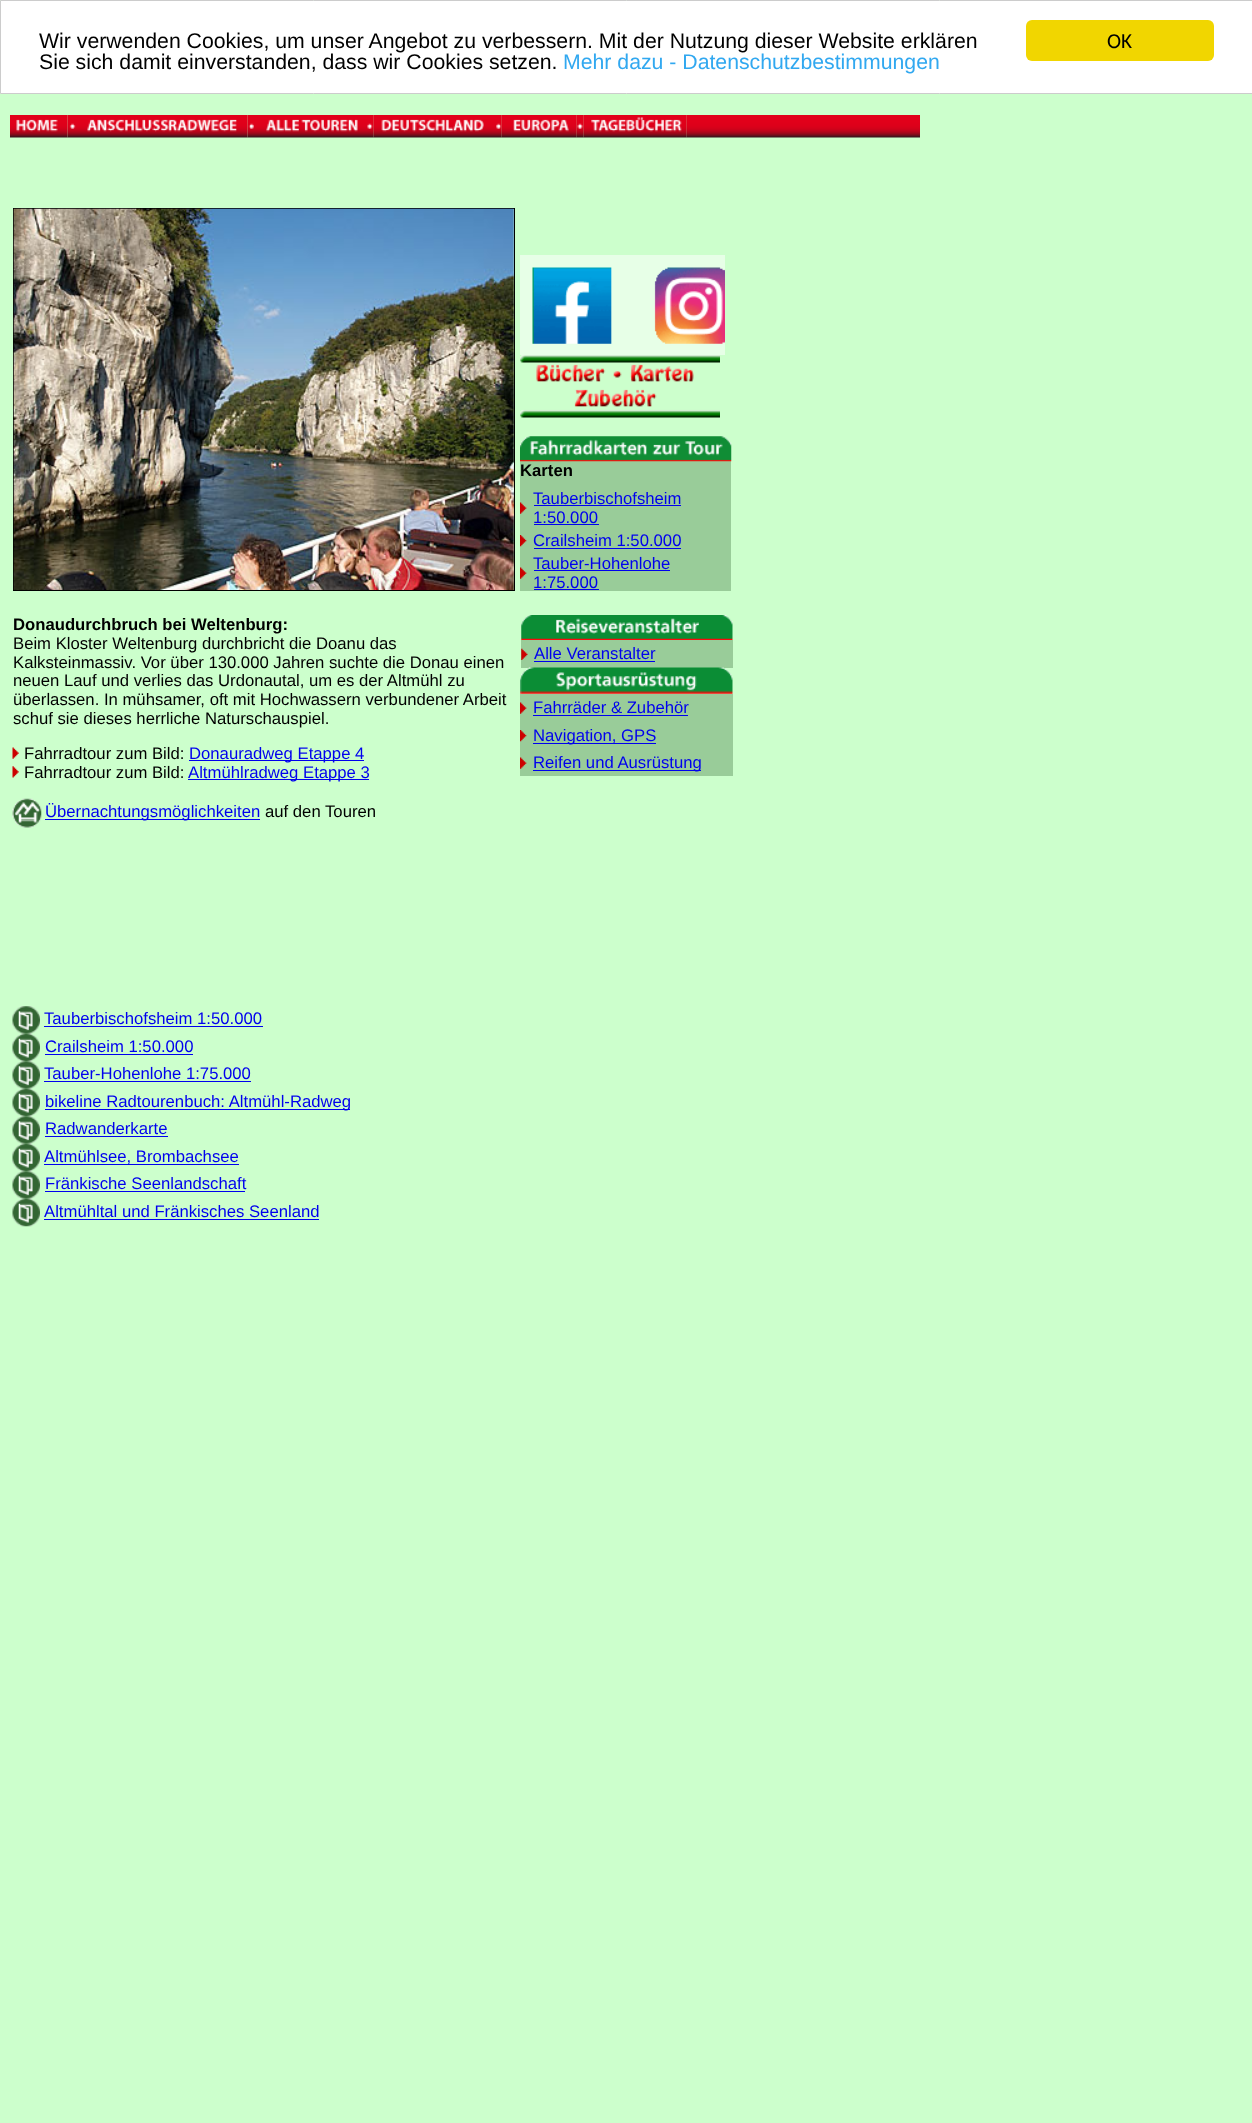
(async () => {
  const canvas = document.querySelector("canvas");
  canvas.width = 1252;
  canvas.height = 2123;
  const ctx = canvas.getContext("2d");
  ctx.miterLimit = 4;
  ctx.fontKerning = "normal";
  async function loadImage(src) {
    const img = new Image();
    img.src = src;
    await img.decode();
    return img;
  }

  ctx.fillStyle = "#ccffcc";
  ctx.fillRect(0, 0, 1252, 2123);
  ctx.fillStyle = "#ffffff";
  ctx.beginPath();
  ctx.rect(0.5, 0.5, 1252, 93);
  ctx.fill();
  ctx.strokeStyle = "#cccccc";
  ctx.stroke();
  ctx.fillStyle = "#f1d600";
  ctx.beginPath();
  ctx.roundRect(1026, 20, 188, 41, 6);
  ctx.fill();
  ctx.drawImage(await loadImage("img/1.png"), 10, 115, 58, 23);
  ctx.drawImage(await loadImage("img/2.png"), 67, 115, 13, 23);
  ctx.drawImage(await loadImage("img/3.png"), 80, 115, 168, 23);
  ctx.drawImage(await loadImage("img/4.png"), 247, 115, 8, 23);
  ctx.drawImage(await loadImage("img/5.png"), 255, 115, 110, 23);
  ctx.drawImage(await loadImage("img/6.png"), 365, 115, 9, 23);
  ctx.drawImage(await loadImage("img/7.png"), 373, 115, 122, 23);
  ctx.drawImage(await loadImage("img/8.png"), 495, 115, 7, 23);
  ctx.drawImage(await loadImage("img/9.png"), 501, 115, 76, 23);
  ctx.drawImage(await loadImage("img/10.png"), 576, 115, 8, 23);
  ctx.drawImage(await loadImage("img/11.png"), 583, 115, 104, 23);
  ctx.drawImage(await loadImage("img/12.png"), 686, 115, 234, 23);
  ctx.strokeStyle = "#000000";
  ctx.strokeRect(13.5, 208.5, 501, 382);
  ctx.drawImage(await loadImage("img/13.png"), 13, 208, 501, 382);
  ctx.drawImage(await loadImage("img/14.png"), 520, 255, 205, 100);
  ctx.drawImage(await loadImage("img/15.png"), 520, 355, 200, 63);
  ctx.fillStyle = "#99cc99";
  ctx.fillRect(520, 461, 211, 28);
  ctx.drawImage(await loadImage("img/16.png"), 520, 436, 212, 26);
  ctx.fillRect(520, 489, 211, 37);
  ctx.drawImage(await loadImage("img/17.png"), 520, 502, 7, 12);
  for (const [x, y, w, h, color] of [
    [534, 505, 147, 1, "#0000ee"],
    [534, 524, 65, 1, "#0000ee"],
    [520, 526, 211, 28, "#99cc99"],
  ]) {
    ctx.fillStyle = color;
    ctx.fillRect(x, y, w, h);
  }
  ctx.drawImage(await loadImage("img/18.png"), 520, 535, 7, 12);
  ctx.fillStyle = "#0000ee";
  ctx.fillRect(534, 548, 147, 1);
  ctx.fillStyle = "#99cc99";
  ctx.fillRect(520, 554, 211, 37);
  ctx.drawImage(await loadImage("img/17.png"), 520, 567, 7, 12);
  ctx.fillStyle = "#0000ee";
  ctx.fillRect(534, 570, 136, 1);
  ctx.fillRect(534, 589, 65, 1);
  ctx.drawImage(await loadImage("img/19.png"), 12, 747, 7, 12);
  ctx.fillRect(189, 760, 175, 1);
  ctx.drawImage(await loadImage("img/20.png"), 12, 766, 7, 12);
  ctx.fillRect(188, 779, 181, 1);
  ctx.drawImage(await loadImage("img/21.png"), 12, 798, 30, 30);
  ctx.fillRect(45, 819, 215, 1);
  ctx.drawImage(await loadImage("img/22.png"), 12, 1006, 28, 28);
  ctx.fillRect(44, 1026, 219, 1);
  ctx.drawImage(await loadImage("img/23.png"), 12, 1033, 28, 29);
  ctx.fillRect(45, 1054, 148, 1);
  ctx.drawImage(await loadImage("img/24.png"), 12, 1061, 28, 28);
  ctx.fillRect(44, 1081, 207, 1);
  ctx.drawImage(await loadImage("img/23.png"), 12, 1088, 28, 29);
  ctx.fillRect(45, 1109, 305, 1);
  ctx.drawImage(await loadImage("img/24.png"), 12, 1116, 28, 28);
  ctx.fillRect(45, 1136, 123, 1);
  ctx.drawImage(await loadImage("img/23.png"), 12, 1143, 28, 29);
  ctx.fillRect(44, 1164, 195, 1);
  ctx.drawImage(await loadImage("img/25.png"), 12, 1171, 28, 28);
  ctx.fillRect(45, 1191, 200, 1);
  ctx.drawImage(await loadImage("img/23.png"), 12, 1198, 28, 29);
  ctx.fillRect(44, 1219, 275, 1);
  ctx.drawImage(await loadImage("img/26.png"), 521, 615, 212, 25);
  ctx.fillStyle = "#99cc99";
  ctx.fillRect(521, 640, 212, 28);
  ctx.drawImage(await loadImage("img/27.png"), 521, 648, 7, 12);
  ctx.fillStyle = "#0000ee";
  ctx.fillRect(534, 661, 121, 1);
  ctx.drawImage(await loadImage("img/28.png"), 520, 667, 213, 27);
  ctx.fillStyle = "#99cc99";
  ctx.fillRect(520, 694, 213, 27);
  ctx.drawImage(await loadImage("img/17.png"), 520, 702, 7, 12);
  ctx.fillStyle = "#0000ee";
  ctx.fillRect(533, 715, 155, 1);
  ctx.fillStyle = "#99cc99";
  ctx.fillRect(520, 721, 213, 28);
  ctx.drawImage(await loadImage("img/18.png"), 520, 730, 7, 12);
  ctx.fillStyle = "#0000ee";
  ctx.fillRect(533, 743, 123, 1);
  ctx.fillStyle = "#99cc99";
  ctx.fillRect(520, 749, 213, 27);
  ctx.drawImage(await loadImage("img/17.png"), 520, 757, 7, 12);
  ctx.fillStyle = "#0000ee";
  ctx.fillRect(533, 770, 168, 1);
  ctx.font = "21.25px Liberation Sans";
  ctx.fillStyle = "#000000";
  ctx.fillText("Wir verwenden Cookies, um unser Angebot zu verbessern. Mit der Nutzung dieser Website erklären", 39, 48);
  ctx.fillText("Sie sich damit einverstanden, dass wir Cookies setzen.", 39, 69);
  ctx.fillStyle = "#31a8f0";
  ctx.fillText("Mehr dazu - Datenschutzbestimmungen", 563, 69);
  ctx.font = "21.25px Carlito";
  ctx.fillStyle = "#000000";
  ctx.fillText("OK", 1107, 48);
  ctx.font = "bold 16.7px Liberation Sans";
  ctx.fillText("Karten", 520, 476);
  ctx.font = "16.7px Liberation Sans";
  ctx.fillStyle = "#0000ee";
  for (const [text, x, y] of [
    ["Tauberbischofsheim", 533, 504],
    ["1:50.000", 533, 523],
    ["Crailsheim 1:50.000", 533, 546],
    ["Tauber-Hohenlohe", 533, 569],
    ["1:75.000", 533, 588],
  ]) {
    ctx.fillText(text, x, y);
  }
  ctx.font = "bold 16.7px Liberation Sans";
  ctx.fillStyle = "#000000";
  ctx.fillText("Donaudurchbruch bei Weltenburg:", 13, 630);
  ctx.font = "16.7px Liberation Sans";
  for (const [text, x, y] of [
    ["Beim Kloster Weltenburg durchbricht die Doanu das", 13, 649],
    ["Kalksteinmassiv. Vor über 130.000 Jahren suchte die Donau einen", 13, 668],
    ["neuen Lauf und verlies das Urdonautal, um es der Altmühl zu", 13, 686],
    ["überlassen. In mühsamer, oft mit Hochwassern verbundener Arbeit", 13, 705],
    ["schuf sie dieses herrliche Naturschauspiel.", 13, 724],
    ["Fahrradtour zum Bild:", 24, 759],
  ]) {
    ctx.fillText(text, x, y);
  }
  ctx.fillStyle = "#0000ee";
  ctx.fillText("Donauradweg Etappe 4", 189, 759);
  ctx.fillStyle = "#000000";
  ctx.fillText("Fahrradtour zum Bild:", 24, 778);
  ctx.fillStyle = "#0000ee";
  ctx.fillText("Altmühlradweg Etappe 3", 188, 778);
  ctx.fillText("Übernachtungsmöglichkeiten", 45, 817);
  ctx.fillStyle = "#000000";
  ctx.fillText("auf den Touren", 265, 817);
  ctx.fillStyle = "#0000ee";
  for (const [text, x, y] of [
    ["Tauberbischofsheim 1:50.000", 44, 1024],
    ["Crailsheim 1:50.000", 45, 1052],
    ["Tauber-Hohenlohe 1:75.000", 44, 1079],
    ["bikeline Radtourenbuch: Altmühl-Radweg", 45, 1107],
    ["Radwanderkarte", 45, 1134],
    ["Altmühlsee, Brombachsee", 44, 1162],
    ["Fränkische Seenlandschaft", 45, 1189],
    ["Altmühltal und Fränkisches Seenland", 44, 1217],
    ["Alle Veranstalter", 534, 659],
    ["Fahrräder & Zubehör", 533, 713],
    ["Navigation, GPS", 533, 741],
    ["Reifen und Ausrüstung", 533, 768],
  ]) {
    ctx.fillText(text, x, y);
  }
})();
